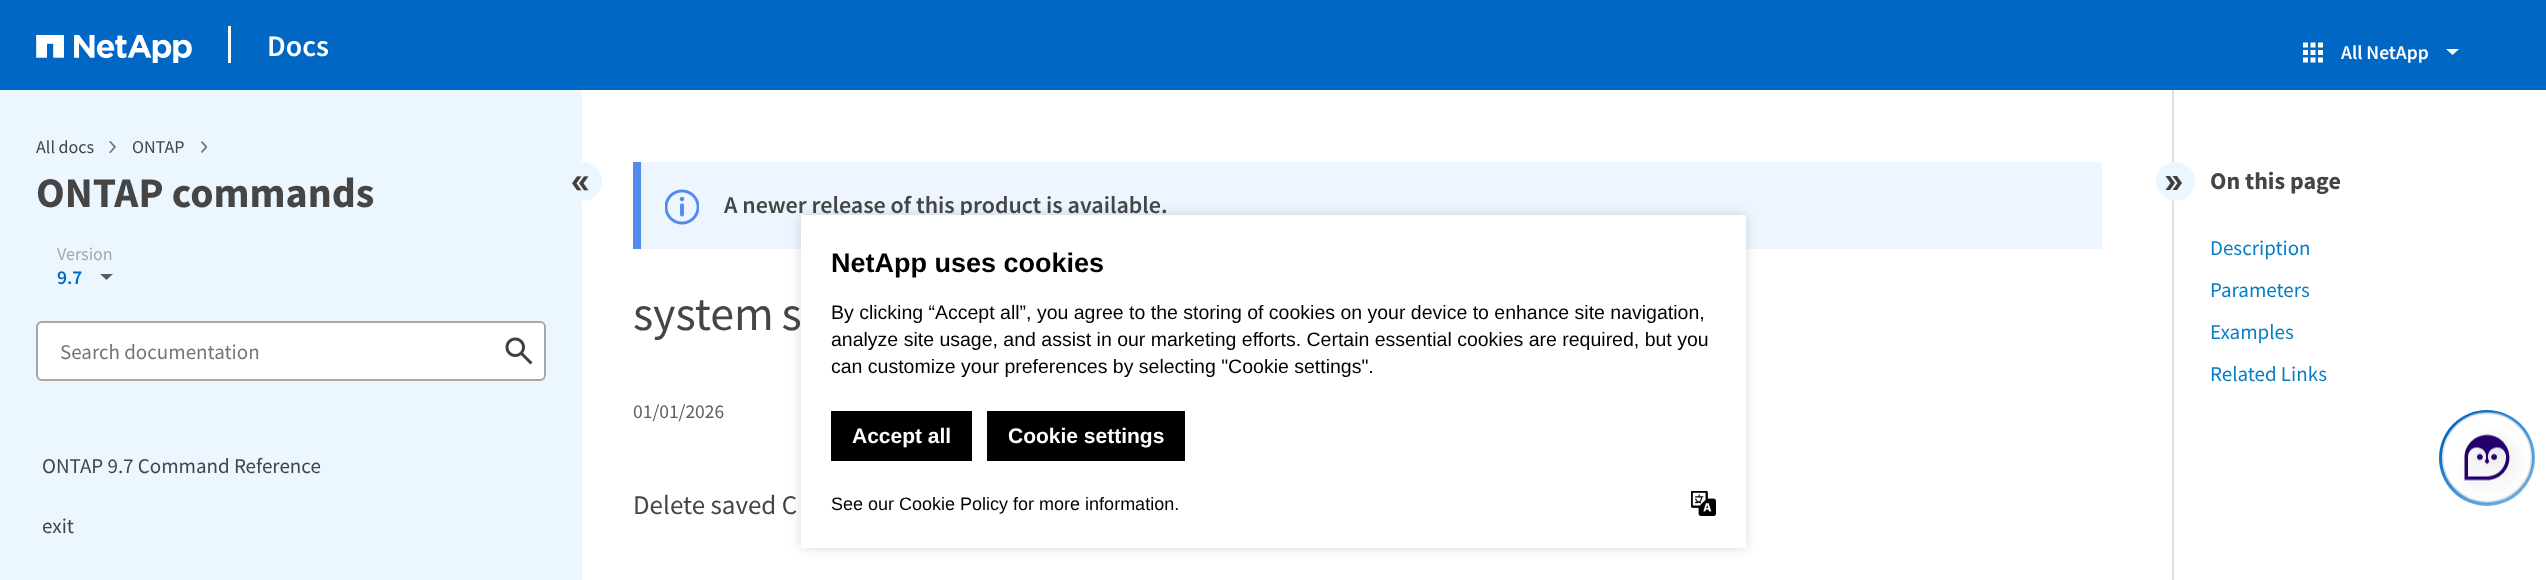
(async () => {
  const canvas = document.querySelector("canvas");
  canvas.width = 2546;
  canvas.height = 580;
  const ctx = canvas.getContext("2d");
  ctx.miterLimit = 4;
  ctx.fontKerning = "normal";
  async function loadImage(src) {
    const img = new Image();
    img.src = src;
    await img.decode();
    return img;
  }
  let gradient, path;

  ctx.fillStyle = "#ffffff";
  ctx.fillRect(0, 0, 2546, 580);
  ctx.fillStyle = "#0067c5";
  ctx.fillRect(0, 0, 2546, 90);
  ctx.drawImage(await loadImage("img/1.png"), 36, 35, 156, 28);
  ctx.fillStyle = "#ffffff";
  ctx.fillRect(228, 26, 3, 37);
  ctx.drawImage(await loadImage("img/2.png"), 2303, 42, 20, 21);
  ctx.fillStyle = "#fdfdfd";
  path = new Path2D("M2452.5 55L2446 49H2459Z");
  ctx.fill(path);
  ctx.fillStyle = "#ecf6ff";
  ctx.fillRect(0, 90, 582, 490);
  ctx.drawImage(await loadImage("img/3.png"), 109, 141, 7, 12);
  ctx.drawImage(await loadImage("img/4.png"), 201, 141, 7, 12);
  ctx.beginPath();
  ctx.arc(582.5, 181.5, 19.5, 0, Math.PI * 2);
  ctx.fill();
  ctx.drawImage(await loadImage("img/5.png"), 572, 176, 17, 15);
  ctx.fillStyle = "#5e5e5e";
  path = new Path2D("M106.5 280L100 274H113Z");
  ctx.fill(path);
  ctx.fillStyle = "#ffffff";
  ctx.beginPath();
  ctx.roundRect(37, 322, 508, 58, 5);
  ctx.fill();
  ctx.strokeStyle = "#a7a7a7";
  ctx.lineWidth = 2;
  ctx.stroke();
  ctx.drawImage(await loadImage("img/6.png"), 505, 337, 28, 28);
  ctx.fillStyle = "#edf6ff";
  ctx.fillRect(641, 162, 1461, 87);
  ctx.fillStyle = "#518bec";
  ctx.fillRect(633, 162, 8, 87);
  ctx.drawImage(await loadImage("img/7.png"), 665, 189, 34, 36);
  ctx.fillStyle = "#e0e0e0";
  ctx.fillRect(2172, 90, 2, 490);
  ctx.fillStyle = "#ecf6ff";
  ctx.beginPath();
  ctx.arc(2175.5, 181.5, 19.5, 0, Math.PI * 2);
  ctx.fill();
  ctx.drawImage(await loadImage("img/8.png"), 2165, 176, 17, 14);
  gradient = ctx.createLinearGradient(2439, 410, 2535, 506);
  gradient.addColorStop(0.18, "#0067c5");
  gradient.addColorStop(0.89, "#7ac3fa");
  ctx.fillStyle = gradient;
  ctx.beginPath();
  ctx.arc(2487, 458, 48, 0, Math.PI * 2);
  ctx.fill();
  ctx.drawImage(await loadImage("img/9.png"), 2442, 412, 92, 93);
  ctx.fillStyle = "rgba(0, 0, 0, 0.15)";
  ctx.filter = "blur(6px)";
  ctx.beginPath();
  ctx.rect(801, 215, 945, 333);
  ctx.fill();
  ctx.filter = "none";
  ctx.font = "600 30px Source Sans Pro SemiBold";
  ctx.fillStyle = "#ffffff";
  ctx.fillText("Docs", 267, 56);
  ctx.font = "600 19.5px Source Sans Pro SemiBold";
  ctx.fillText("All NetApp", 2341, 59);
  ctx.font = "18px Source Sans Pro";
  ctx.fillStyle = "#454545";
  ctx.fillText("All docs", 36, 153);
  ctx.fillText("ONTAP", 132, 153);
  ctx.font = "bold 42px Source Sans Pro";
  ctx.fillText("ONTAP commands", 36, 207);
  ctx.font = "18px Source Sans Pro";
  ctx.fillStyle = "#a7a7a7";
  ctx.fillText("Version", 57, 260);
  ctx.font = "600 19.5px Source Sans Pro SemiBold";
  ctx.fillStyle = "#0067c5";
  ctx.fillText("9.7", 57, 284);
  ctx.font = "21px Source Sans Pro";
  ctx.fillStyle = "#757575";
  ctx.fillText("Search documentation", 60, 359);
  ctx.fillStyle = "#454545";
  ctx.fillText("ONTAP 9.7 Command Reference", 42, 473);
  ctx.fillText("exit", 42, 533);
  ctx.font = "600 24px Source Sans Pro SemiBold";
  ctx.fillText("A newer release of this product is available.", 724, 213);
  ctx.wordSpacing = "-2px";
  ctx.font = "48px Source Sans Pro";
  ctx.fillText("system s", 633, 330);
  ctx.wordSpacing = "0px";
  ctx.font = "19.5px Source Sans Pro";
  ctx.fillStyle = "#5e5e5e";
  ctx.fillText("01/01/2026", 633, 418);
  ctx.font = "27px Source Sans Pro";
  ctx.fillStyle = "#454545";
  ctx.fillText("Delete saved C", 633, 514);
  ctx.font = "bold 24px Source Sans Pro";
  ctx.fillText("On this page", 2210, 189);
  ctx.font = "21px Source Sans Pro";
  ctx.fillStyle = "#067ec5";
  for (const [text, x, y] of [
    ["Description", 2210, 255],
    ["Parameters", 2210, 297],
    ["Examples", 2210, 339],
    ["Related Links", 2210, 381],
  ]) {
    ctx.fillText(text, x, y);
  }
  ctx.fillStyle = "#ffffff";
  ctx.fillRect(801, 215, 945, 333);
  ctx.font = "bold 27px Liberation Sans";
  ctx.fillStyle = "#000000";
  ctx.fillText("NetApp uses cookies", 831, 272);
  ctx.font = "19.5px Liberation Sans";
  for (const [text, x, y] of [
    ["By clicking “Accept all”, you agree to the storing of cookies on your device to enhance site navigation,", 831, 319],
    ["analyze site usage, and assist in our marketing efforts. Certain essential cookies are required, but you", 831, 346],
    ["can customize your preferences by selecting \"Cookie settings\".", 831, 373],
  ]) {
    ctx.fillText(text, x, y);
  }
  ctx.fillRect(831, 411, 141, 50);
  ctx.font = "bold 21px Liberation Sans";
  ctx.fillStyle = "#ffffff";
  ctx.fillText("Accept all", 852, 443);
  ctx.fillStyle = "#000000";
  ctx.fillRect(987, 411, 198, 50);
  ctx.fillStyle = "#ffffff";
  ctx.fillText("Cookie settings", 1008, 443);
  ctx.font = "18px Liberation Sans";
  ctx.fillStyle = "#000000";
  ctx.fillText("See our Cookie Policy for more information.", 831, 510);
  ctx.drawImage(await loadImage("img/10.png"), 1691, 491, 25, 25);
})();
